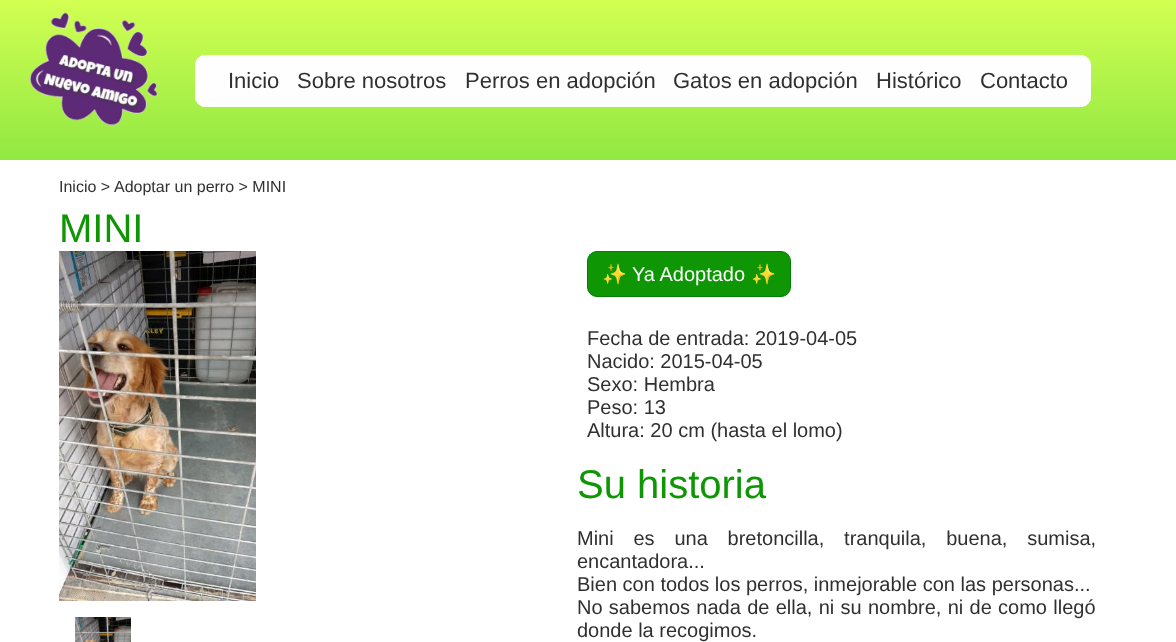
(async () => {
  const canvas = document.querySelector("canvas");
  canvas.width = 1176;
  canvas.height = 642;
  const ctx = canvas.getContext("2d");
  ctx.miterLimit = 4;
  ctx.fontKerning = "normal";
  async function loadImage(src) {
    const img = new Image();
    img.src = src;
    await img.decode();
    return img;
  }
  let gradient, path;

  ctx.fillStyle = "#ffffff";
  ctx.fillRect(0, 0, 1176, 642);
  gradient = ctx.createLinearGradient(588, 0, 588, 160);
  gradient.addColorStop(0, "#d2ff52");
  gradient.addColorStop(1, "#91e842");
  ctx.fillStyle = gradient;
  ctx.fillRect(0, 0, 1176, 160);
  ctx.drawImage(await loadImage("img/1.png"), 30, 12, 128, 114);
  ctx.fillStyle = "#fefefe";
  ctx.beginPath();
  ctx.roundRect(195, 55, 896, 52, 10);
  ctx.fill();
  path = new Path2D("M205 55.5H1081C1086 55.5 1090.5 60 1090.5 65V97C1090.5 102 1086 106.5 1081 106.5H205C200 106.5 195.5 102 195.5 97V65C195.5 60 200 55.5 205 55.5Z");
  ctx.strokeStyle = "#ffffff";
  ctx.setLineDash([3, 2]);
  ctx.stroke(path);
  ctx.drawImage(await loadImage("img/2.png"), 59, 251, 197, 350);
  ctx.drawImage(await loadImage("img/3.png"), 75, 617, 56, 25);
  ctx.fillStyle = "#0e9604";
  ctx.beginPath();
  ctx.roundRect(587.5, 251.5, 203, 45, 9.5);
  ctx.fill();
  ctx.strokeStyle = "#008000";
  ctx.setLineDash([]);
  ctx.stroke();
  ctx.font = "22px Liberation Sans";
  ctx.fillStyle = "#312f2f";
  for (const [text, x, y] of [
    ["Inicio", 228, 88],
    ["Sobre nosotros", 297, 88],
    ["Perros en adopción", 465, 88],
    ["Gatos en adopción", 673, 88],
    ["Histórico", 876, 88],
    ["Contacto", 980, 88],
  ]) {
    ctx.fillText(text, x, y);
  }
  ctx.font = "16px Liberation Sans";
  ctx.fillText("Inicio >", 59, 192);
  ctx.fillText("Adoptar un perro > MINI", 114, 192);
  ctx.font = "40px Liberation Sans";
  ctx.fillStyle = "#0e9604";
  ctx.fillText("MINI", 59, 242);
  ctx.font = "20px Noto Color Emoji";
  ctx.fillStyle = "#ffffff";
  ctx.fillText("✨", 602, 281);
  ctx.font = "20px Liberation Sans";
  ctx.fillText("Ya Adoptado", 632, 281);
  ctx.font = "20px Noto Color Emoji";
  ctx.fillText("✨", 751, 281);
  ctx.font = "20px Liberation Sans";
  ctx.fillStyle = "#312f2f";
  for (const [text, x, y] of [
    ["Fecha de entrada: 2019-04-05", 587, 345],
    ["Nacido: 2015-04-05", 587, 368],
    ["Sexo: Hembra", 587, 391],
    ["Peso: 13", 587, 414],
    ["Altura: 20 cm (hasta el lomo)", 587, 437],
  ]) {
    ctx.fillText(text, x, y);
  }
  ctx.font = "40px Liberation Sans";
  ctx.fillStyle = "#0e9604";
  ctx.fillText("Su historia", 577, 498);
  ctx.wordSpacing = "14.25px";
  ctx.font = "20px Liberation Sans";
  ctx.fillStyle = "#312f2f";
  ctx.fillText("Mini es una bretoncilla, tranquila, buena, sumisa,", 577, 545);
  ctx.wordSpacing = "0px";
  ctx.fillText("encantadora...", 577, 568);
  ctx.fillText("Bien con todos los perros, inmejorable con las personas...", 577, 591);
  ctx.wordSpacing = "0.75px";
  ctx.fillText("No sabemos nada de ella, ni su nombre, ni de como llegó", 577, 614);
  ctx.wordSpacing = "0px";
  ctx.fillText("donde la recogimos.", 577, 637);
})();
